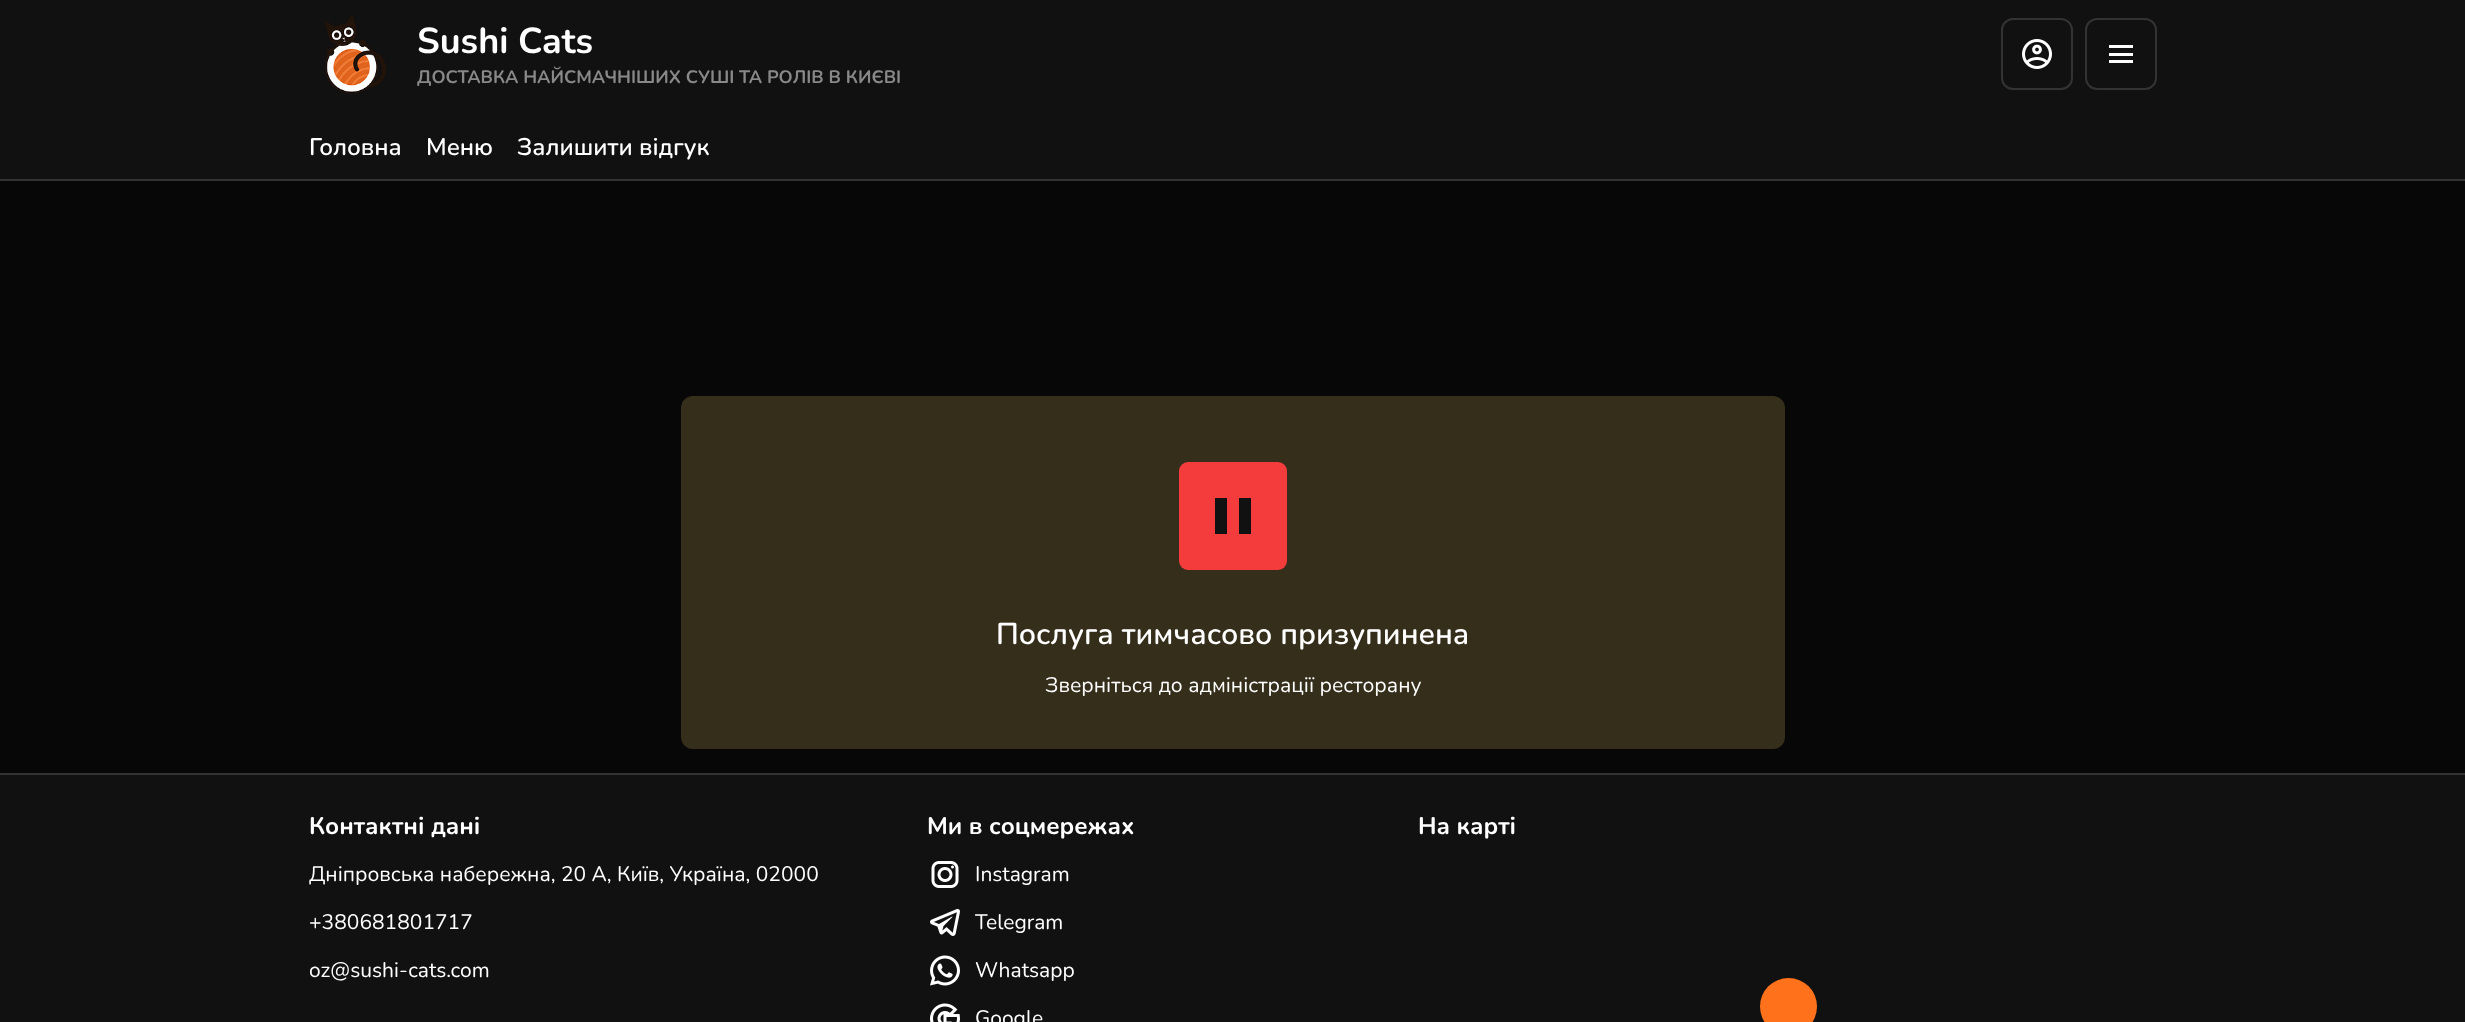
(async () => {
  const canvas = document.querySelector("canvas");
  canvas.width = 2465;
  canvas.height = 1022;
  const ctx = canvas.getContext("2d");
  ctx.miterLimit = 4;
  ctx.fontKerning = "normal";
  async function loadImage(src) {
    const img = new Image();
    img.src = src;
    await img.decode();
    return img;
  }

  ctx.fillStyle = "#080707";
  ctx.fillRect(0, 0, 2465, 1022);
  ctx.fillStyle = "#111111";
  ctx.fillRect(0, 0, 2465, 179);
  ctx.drawImage(await loadImage("img/1.png"), 325, 14, 61, 80);
  ctx.beginPath();
  ctx.roundRect(2002, 19, 70, 70, 11);
  ctx.strokeStyle = "#333333";
  ctx.lineWidth = 2;
  ctx.stroke();
  ctx.drawImage(await loadImage("img/2.png"), 2022, 39, 30, 30);
  ctx.beginPath();
  ctx.roundRect(2086, 19, 70, 70, 11);
  ctx.stroke();
  for (const [x, y, w, h, color] of [
    [2109, 45, 24, 3, "#ffffff"],
    [2109, 53, 24, 3, "#ffffff"],
    [2109, 60, 24, 3, "#ffffff"],
    [0, 179, 2465, 2, "#333333"],
  ]) {
    ctx.fillStyle = color;
    ctx.fillRect(x, y, w, h);
  }
  ctx.fillStyle = "#111111";
  ctx.beginPath();
  ctx.roundRect(681, 396, 1104, 353, 12);
  ctx.fill();
  ctx.fillStyle = "rgba(255, 218, 84, 0.15)";
  ctx.beginPath();
  ctx.roundRect(681, 396, 1104, 353, 12);
  ctx.fill();
  ctx.fillStyle = "#f53c3c";
  ctx.beginPath();
  ctx.roundRect(1179, 462, 108, 108, 9);
  ctx.fill();
  for (const [x, y, w, h, color] of [
    [1215, 498, 12, 36, "#111111"],
    [1239, 498, 12, 36, "#111111"],
    [0, 775, 2465, 247, "#111111"],
    [0, 773, 2465, 2, "#333333"],
  ]) {
    ctx.fillStyle = color;
    ctx.fillRect(x, y, w, h);
  }
  ctx.drawImage(await loadImage("img/3.png"), 931, 861, 28, 27);
  ctx.drawImage(await loadImage("img/4.png"), 930, 909, 30, 27);
  ctx.drawImage(await loadImage("img/5.png"), 930, 955, 30, 31);
  ctx.drawImage(await loadImage("img/6.png"), 930, 1003, 30, 19);
  ctx.fillStyle = "#ff721b";
  ctx.beginPath();
  ctx.arc(1788.5, 1006.5, 28.5, 0, Math.PI * 2);
  ctx.fill();
  ctx.font = "bold 36px Nunito";
  ctx.fillStyle = "#ffffff";
  ctx.fillText("Sushi Cats", 417, 53);
  ctx.font = "bold 18px Nunito";
  ctx.fillStyle = "#888888";
  ctx.fillText("ДОСТАВКА НАЙСМАЧНІШИХ СУШІ ТА РОЛІВ В КИЄВІ", 417, 83);
  ctx.font = "600 24px Nunito";
  ctx.fillStyle = "#ffffff";
  for (const [text, x, y] of [
    ["Головна", 309, 155],
    ["Меню", 426, 155],
    ["Залишити відгук", 517, 155],
  ]) {
    ctx.fillText(text, x, y);
  }
  ctx.font = "600 30px Nunito";
  ctx.fillText("Послуга тимчасово призупинена", 996, 644);
  ctx.font = "21px Nunito";
  ctx.fillText("Зверніться до адміністрації ресторану", 1045, 692);
  ctx.font = "bold 24px Nunito";
  ctx.fillText("Контактні дані", 309, 834);
  ctx.font = "21px Nunito";
  for (const [text, x, y] of [
    ["Дніпровська набережна, 20 А, Київ, Україна, 02000", 309, 881],
    ["+380681801717", 309, 929],
    ["oz@sushi-cats.com", 309, 977],
  ]) {
    ctx.fillText(text, x, y);
  }
  ctx.font = "bold 24px Nunito";
  ctx.fillText("Ми в соцмережах", 927, 834);
  ctx.font = "21px Nunito";
  for (const [text, x, y] of [
    ["Instagram", 975, 881],
    ["Telegram", 975, 929],
    ["Whatsapp", 975, 977],
    ["Google", 975, 1025],
  ]) {
    ctx.fillText(text, x, y);
  }
  ctx.font = "bold 24px Nunito";
  ctx.fillText("На карті", 1418, 834);
})();
